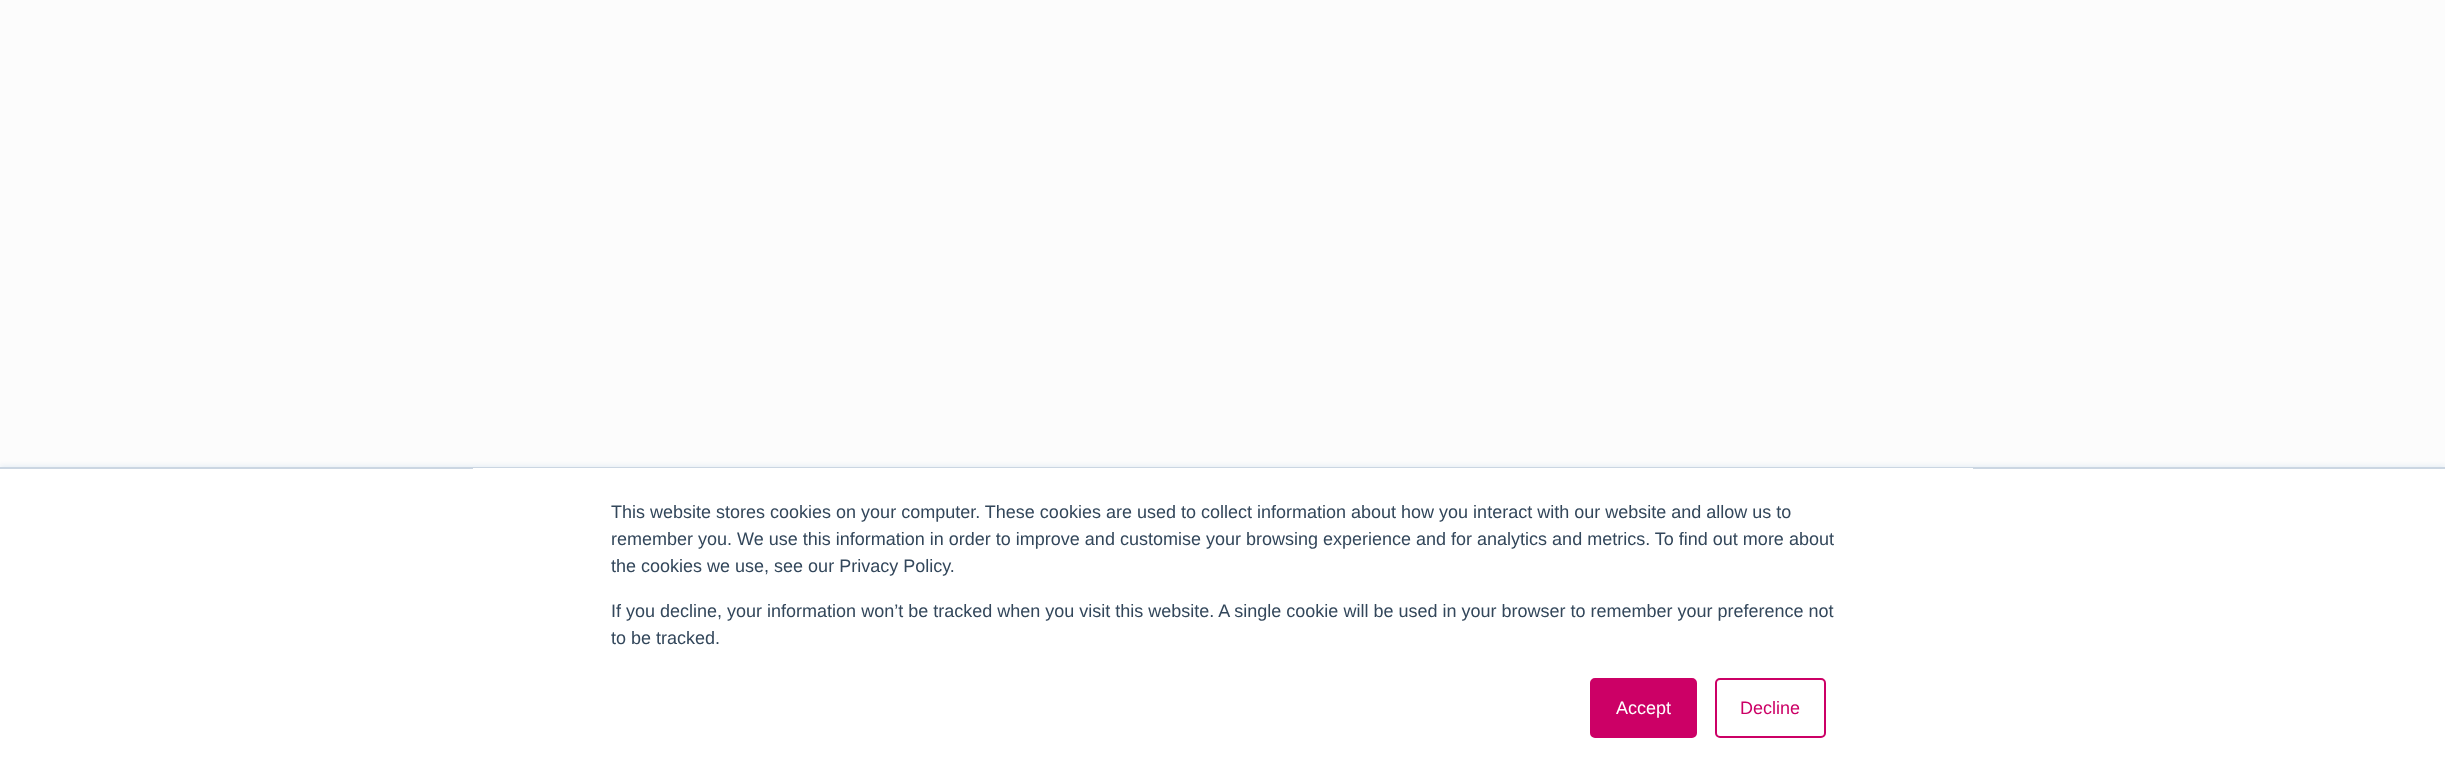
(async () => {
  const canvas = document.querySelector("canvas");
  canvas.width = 2445;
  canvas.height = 777;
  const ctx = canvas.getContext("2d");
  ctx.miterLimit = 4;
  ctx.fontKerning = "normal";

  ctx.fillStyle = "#fcfcfc";
  ctx.fillRect(0, 0, 2445, 777);
  ctx.fillStyle = "#eaf0f6";
  ctx.filter = "blur(2px)";
  ctx.beginPath();
  ctx.rect(0, 465, 2445, 311);
  ctx.fill();
  ctx.filter = "none";
  for (const [x, y, w, h, color] of [
    [0, 469, 2445, 308, "#ffffff"],
    [0, 467, 2445, 2, "#cbd6e2"],
    [473, 468, 1500, 1, "#ffffff"],
  ]) {
    ctx.fillStyle = color;
    ctx.fillRect(x, y, w, h);
  }
  ctx.fillStyle = "#cc0066";
  ctx.beginPath();
  ctx.roundRect(1591, 679, 105, 58, 4);
  ctx.fill();
  ctx.strokeStyle = "#cc0066";
  ctx.lineWidth = 2;
  ctx.stroke();
  ctx.beginPath();
  ctx.roundRect(1716, 679, 109, 58, 4);
  ctx.stroke();
  ctx.font = "18px Liberation Sans";
  ctx.fillStyle = "#33475b";
  for (const [text, x, y] of [
    ["This website stores cookies on your computer. These cookies are used to collect information about how you interact with our website and allow us to", 611, 518],
    ["remember you. We use this information in order to improve and customise your browsing experience and for analytics and metrics. To find out more about", 611, 545],
    ["the cookies we use, see our Privacy Policy.", 611, 572],
    ["If you decline, your information won’t be tracked when you visit this website. A single cookie will be used in your browser to remember your preference not", 611, 617],
    ["to be tracked.", 611, 644],
  ]) {
    ctx.fillText(text, x, y);
  }
  ctx.fillStyle = "#ffffff";
  ctx.fillText("Accept", 1616, 714);
  ctx.fillStyle = "#cc0066";
  ctx.fillText("Decline", 1740, 714);
})();
